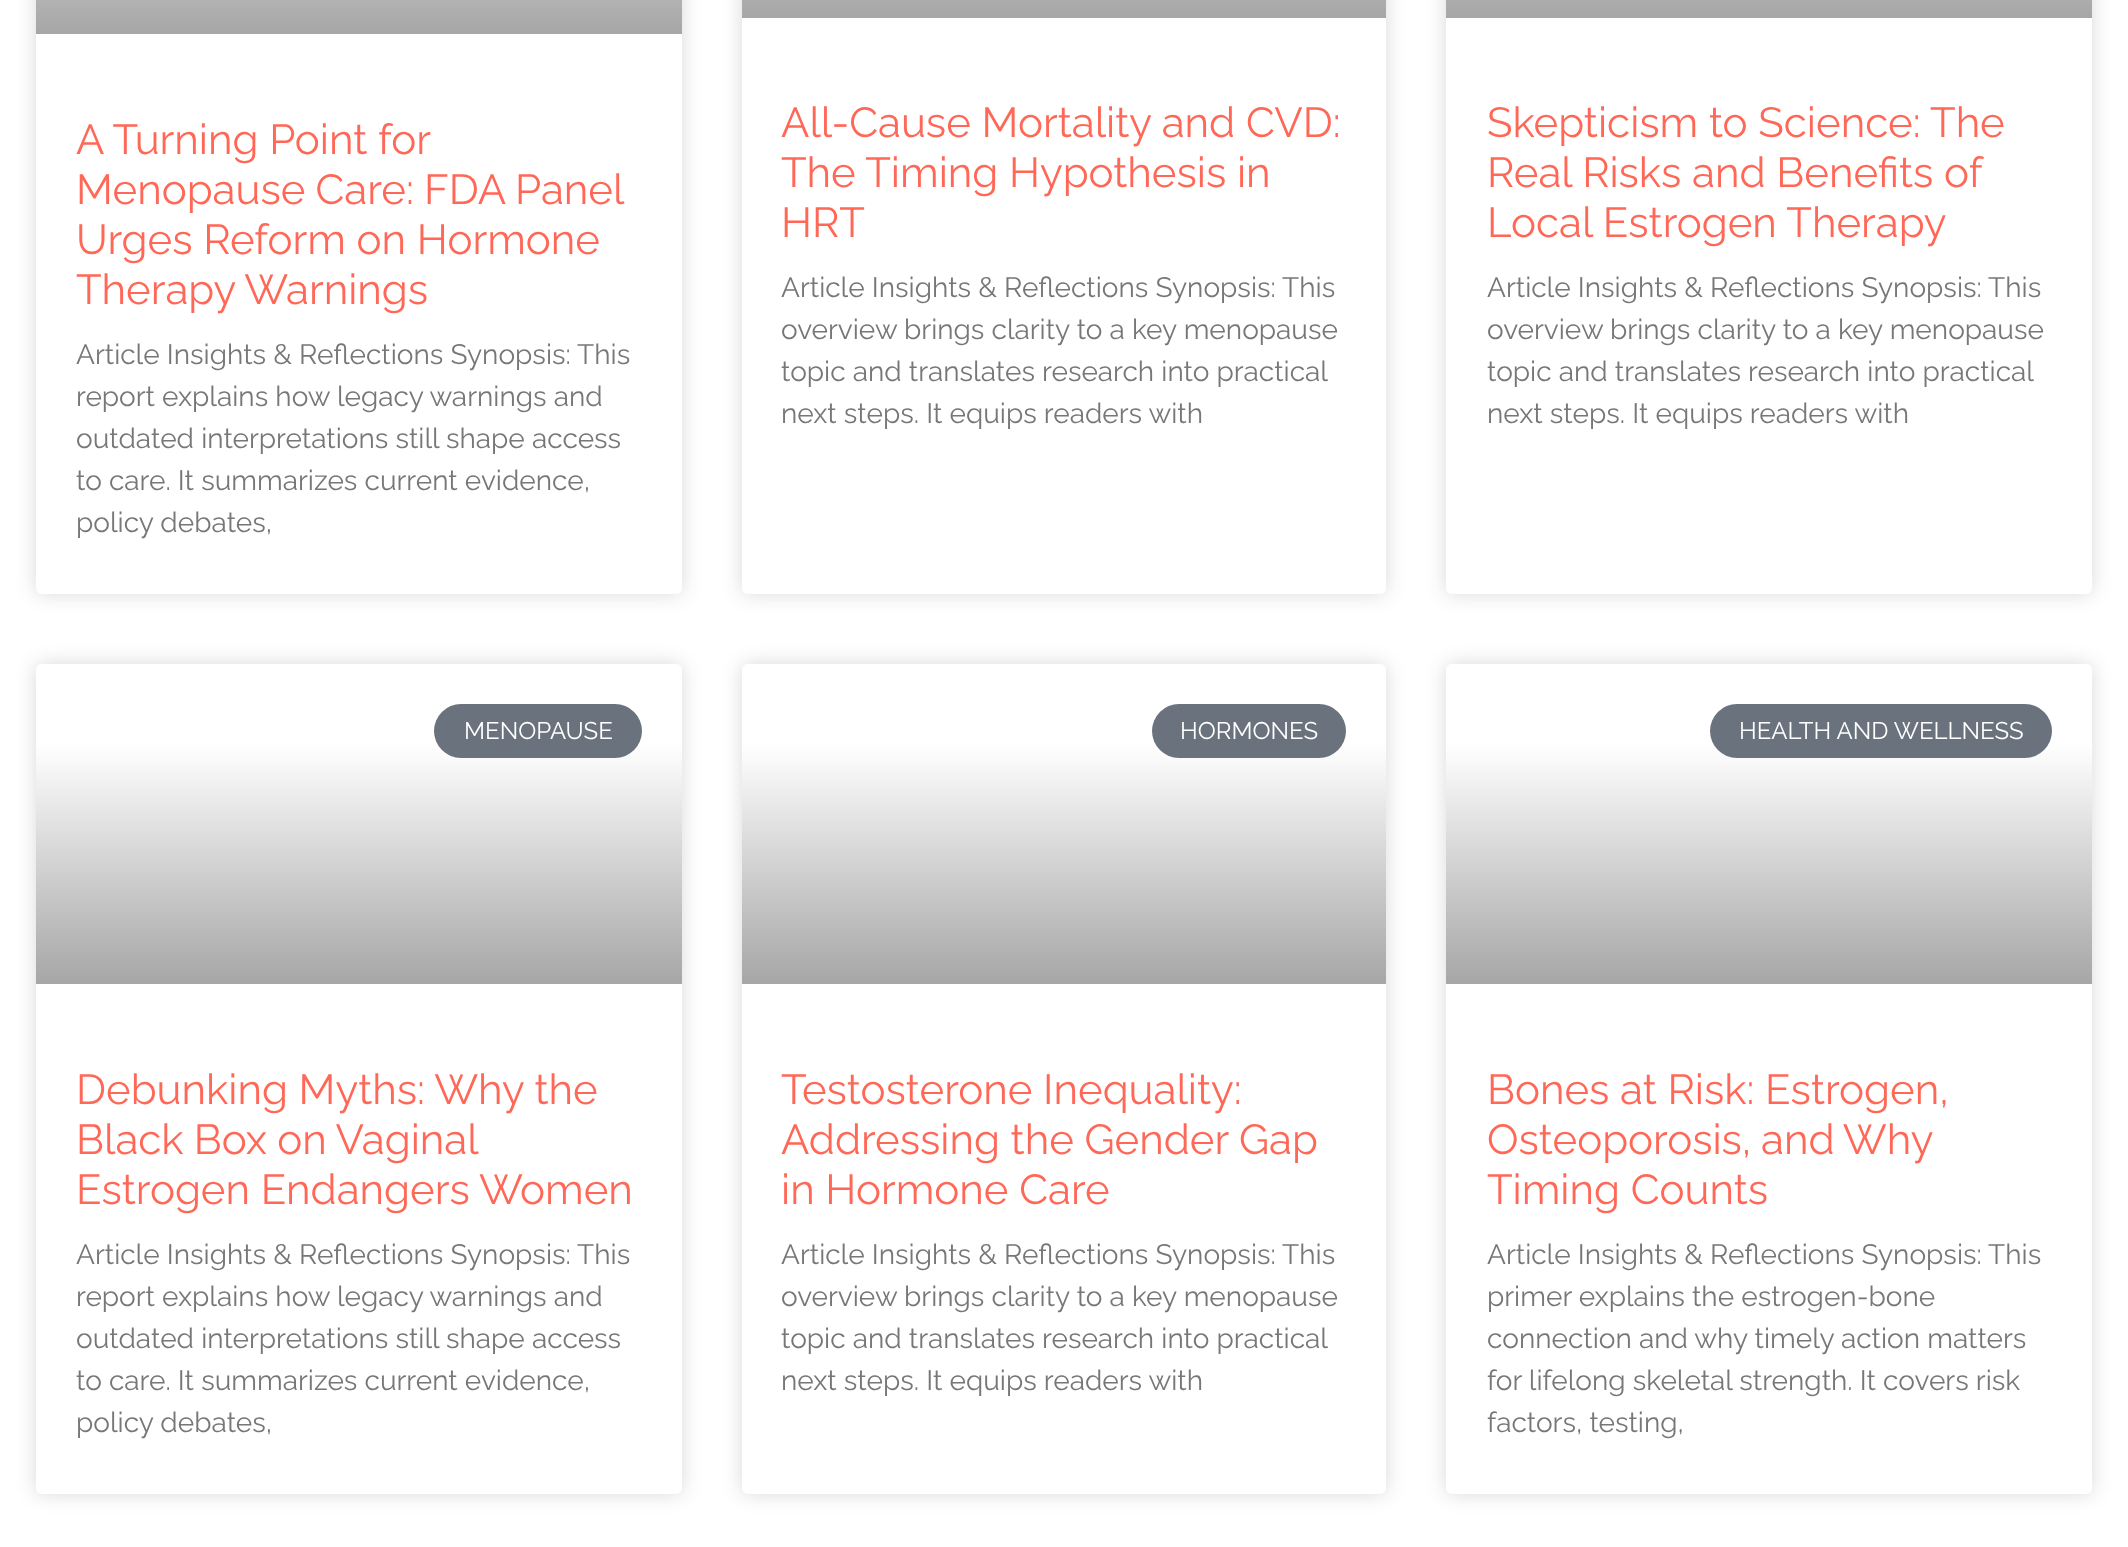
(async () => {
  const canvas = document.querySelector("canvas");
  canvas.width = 2128;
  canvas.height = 1547;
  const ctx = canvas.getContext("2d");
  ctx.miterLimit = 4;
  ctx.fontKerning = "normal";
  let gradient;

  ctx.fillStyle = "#ffffff";
  ctx.fillRect(0, 0, 2128, 1547);
  ctx.fillStyle = "rgba(0, 0, 0, 0.15)";
  ctx.filter = "blur(10px)";
  ctx.beginPath();
  ctx.roundRect(36, -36, 646, 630, 6);
  ctx.fill();
  ctx.filter = "none";
  ctx.fillStyle = "#ffffff";
  ctx.beginPath();
  ctx.roundRect(36, -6, 646, 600, 6);
  ctx.fill();
  gradient = ctx.createLinearGradient(359, 34, 359, -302);
  gradient.addColorStop(0, "#a6a6a6");
  gradient.addColorStop(0.75, "#ffffff");
  ctx.fillStyle = gradient;
  ctx.fillRect(36, 0, 646, 34);
  ctx.fillStyle = "rgba(0, 0, 0, 0.15)";
  ctx.filter = "blur(10px)";
  ctx.beginPath();
  ctx.roundRect(742, -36, 644, 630, 6);
  ctx.fill();
  ctx.filter = "none";
  ctx.fillStyle = "#ffffff";
  ctx.beginPath();
  ctx.roundRect(742, -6, 644, 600, 6);
  ctx.fill();
  gradient = ctx.createLinearGradient(1064, 18, 1064, -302);
  gradient.addColorStop(0, "#a6a6a6");
  gradient.addColorStop(0.75, "#ffffff");
  ctx.fillStyle = gradient;
  ctx.fillRect(742, 0, 644, 18);
  ctx.fillStyle = "rgba(0, 0, 0, 0.15)";
  ctx.filter = "blur(10px)";
  ctx.beginPath();
  ctx.roundRect(1446, -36, 646, 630, 6);
  ctx.fill();
  ctx.filter = "none";
  ctx.fillStyle = "#ffffff";
  ctx.beginPath();
  ctx.roundRect(1446, -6, 646, 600, 6);
  ctx.fill();
  gradient = ctx.createLinearGradient(1769, 18, 1769, -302);
  gradient.addColorStop(0, "#a6a6a6");
  gradient.addColorStop(0.75, "#ffffff");
  ctx.fillStyle = gradient;
  ctx.fillRect(1446, 0, 646, 18);
  ctx.fillStyle = "rgba(0, 0, 0, 0.15)";
  ctx.filter = "blur(10px)";
  ctx.beginPath();
  ctx.roundRect(36, 664, 646, 830, 6);
  ctx.fill();
  ctx.filter = "none";
  ctx.fillStyle = "#ffffff";
  ctx.beginPath();
  ctx.roundRect(36, 664, 646, 830, 6);
  ctx.fill();
  gradient = ctx.createLinearGradient(359, 984, 359, 664);
  gradient.addColorStop(0, "#a6a6a6");
  gradient.addColorStop(0.75, "#ffffff");
  ctx.fillStyle = gradient;
  ctx.beginPath();
  ctx.roundRect(36, 664, 646, 320, [6, 6, 0, 0]);
  ctx.fill();
  ctx.fillStyle = "#69727d";
  ctx.beginPath();
  ctx.roundRect(434, 704, 208, 54, 27);
  ctx.fill();
  ctx.fillStyle = "rgba(0, 0, 0, 0.15)";
  ctx.filter = "blur(10px)";
  ctx.beginPath();
  ctx.roundRect(742, 664, 644, 830, 6);
  ctx.fill();
  ctx.filter = "none";
  ctx.fillStyle = "#ffffff";
  ctx.beginPath();
  ctx.roundRect(742, 664, 644, 830, 6);
  ctx.fill();
  gradient = ctx.createLinearGradient(1064, 984, 1064, 664);
  gradient.addColorStop(0, "#a6a6a6");
  gradient.addColorStop(0.75, "#ffffff");
  ctx.fillStyle = gradient;
  ctx.beginPath();
  ctx.roundRect(742, 664, 644, 320, [6, 6, 0, 0]);
  ctx.fill();
  ctx.fillStyle = "#69727d";
  ctx.beginPath();
  ctx.roundRect(1152, 704, 194, 54, 27);
  ctx.fill();
  ctx.fillStyle = "rgba(0, 0, 0, 0.15)";
  ctx.filter = "blur(10px)";
  ctx.beginPath();
  ctx.roundRect(1446, 664, 646, 830, 6);
  ctx.fill();
  ctx.filter = "none";
  ctx.fillStyle = "#ffffff";
  ctx.beginPath();
  ctx.roundRect(1446, 664, 646, 830, 6);
  ctx.fill();
  gradient = ctx.createLinearGradient(1769, 984, 1769, 664);
  gradient.addColorStop(0, "#a6a6a6");
  gradient.addColorStop(0.75, "#ffffff");
  ctx.fillStyle = gradient;
  ctx.beginPath();
  ctx.roundRect(1446, 664, 646, 320, [6, 6, 0, 0]);
  ctx.fill();
  ctx.fillStyle = "#69727d";
  ctx.beginPath();
  ctx.roundRect(1710, 704, 342, 54, 27);
  ctx.fill();
  ctx.font = "42px Raleway";
  ctx.fillStyle = "#ff6857";
  ctx.fillText("A Turning Point for", 76, 154);
  ctx.wordSpacing = "-0.5px";
  ctx.fillText("Menopause Care: FDA Panel", 76, 204);
  ctx.wordSpacing = "0px";
  ctx.fillText("Urges Reform on Hormone", 76, 254);
  ctx.fillText("Therapy Warnings", 76, 304);
  ctx.font = "28px Raleway";
  ctx.fillStyle = "#777777";
  for (const [text, x, y] of [
    ["Article Insights & Reflections Synopsis: This", 76, 364],
    ["report explains how legacy warnings and", 76, 406],
    ["outdated interpretations still shape access", 76, 448],
    ["to care. It summarizes current evidence,", 76, 490],
    ["policy debates,", 76, 532],
  ]) {
    ctx.fillText(text, x, y);
  }
  ctx.font = "42px Raleway";
  ctx.fillStyle = "#ff6857";
  for (const [text, x, y] of [
    ["All-Cause Mortality and CVD:", 781, 137],
    ["The Timing Hypothesis in", 781, 187],
    ["HRT", 781, 237],
  ]) {
    ctx.fillText(text, x, y);
  }
  ctx.font = "28px Raleway";
  ctx.fillStyle = "#777777";
  for (const [text, x, y] of [
    ["Article Insights & Reflections Synopsis: This", 781, 297],
    ["overview brings clarity to a key menopause", 781, 339],
    ["topic and translates research into practical", 781, 381],
    ["next steps. It equips readers with", 781, 423],
  ]) {
    ctx.fillText(text, x, y);
  }
  ctx.font = "42px Raleway";
  ctx.fillStyle = "#ff6857";
  for (const [text, x, y] of [
    ["Skepticism to Science: The", 1487, 137],
    ["Real Risks and Benefits of", 1487, 187],
    ["Local Estrogen Therapy", 1487, 237],
  ]) {
    ctx.fillText(text, x, y);
  }
  ctx.font = "28px Raleway";
  ctx.fillStyle = "#777777";
  for (const [text, x, y] of [
    ["Article Insights & Reflections Synopsis: This", 1487, 297],
    ["overview brings clarity to a key menopause", 1487, 339],
    ["topic and translates research into practical", 1487, 381],
    ["next steps. It equips readers with", 1487, 423],
  ]) {
    ctx.fillText(text, x, y);
  }
  ctx.font = "24px Raleway";
  ctx.fillStyle = "#ffffff";
  ctx.fillText("MENOPAUSE", 464, 739);
  ctx.font = "42px Raleway";
  ctx.fillStyle = "#ff6857";
  ctx.fillText("Debunking Myths: Why the", 76, 1104);
  ctx.wordSpacing = "-0.5px";
  ctx.fillText("Black Box on Vaginal", 76, 1154);
  ctx.wordSpacing = "0px";
  ctx.fillText("Estrogen Endangers Women", 76, 1204);
  ctx.font = "28px Raleway";
  ctx.fillStyle = "#777777";
  for (const [text, x, y] of [
    ["Article Insights & Reflections Synopsis: This", 76, 1264],
    ["report explains how legacy warnings and", 76, 1306],
    ["outdated interpretations still shape access", 76, 1348],
    ["to care. It summarizes current evidence,", 76, 1390],
    ["policy debates,", 76, 1432],
  ]) {
    ctx.fillText(text, x, y);
  }
  ctx.font = "24px Raleway";
  ctx.fillStyle = "#ffffff";
  ctx.fillText("HORMONES", 1180, 739);
  ctx.font = "42px Raleway";
  ctx.fillStyle = "#ff6857";
  for (const [text, x, y] of [
    ["Testosterone Inequality:", 781, 1104],
    ["Addressing the Gender Gap", 781, 1154],
    ["in Hormone Care", 781, 1204],
  ]) {
    ctx.fillText(text, x, y);
  }
  ctx.font = "28px Raleway";
  ctx.fillStyle = "#777777";
  for (const [text, x, y] of [
    ["Article Insights & Reflections Synopsis: This", 781, 1264],
    ["overview brings clarity to a key menopause", 781, 1306],
    ["topic and translates research into practical", 781, 1348],
    ["next steps. It equips readers with", 781, 1390],
  ]) {
    ctx.fillText(text, x, y);
  }
  ctx.font = "24px Raleway";
  ctx.fillStyle = "#ffffff";
  ctx.fillText("HEALTH AND WELLNESS", 1739, 739);
  ctx.font = "42px Raleway";
  ctx.fillStyle = "#ff6857";
  ctx.fillText("Bones at Risk: Estrogen,", 1487, 1104);
  ctx.wordSpacing = "-1px";
  ctx.fillText("Osteoporosis, and Why", 1487, 1154);
  ctx.wordSpacing = "0px";
  ctx.fillText("Timing Counts", 1487, 1204);
  ctx.font = "28px Raleway";
  ctx.fillStyle = "#777777";
  for (const [text, x, y] of [
    ["Article Insights & Reflections Synopsis: This", 1487, 1264],
    ["primer explains the estrogen-bone", 1487, 1306],
    ["connection and why timely action matters", 1487, 1348],
    ["for lifelong skeletal strength. It covers risk", 1487, 1390],
    ["factors, testing,", 1487, 1432],
  ]) {
    ctx.fillText(text, x, y);
  }
})();
